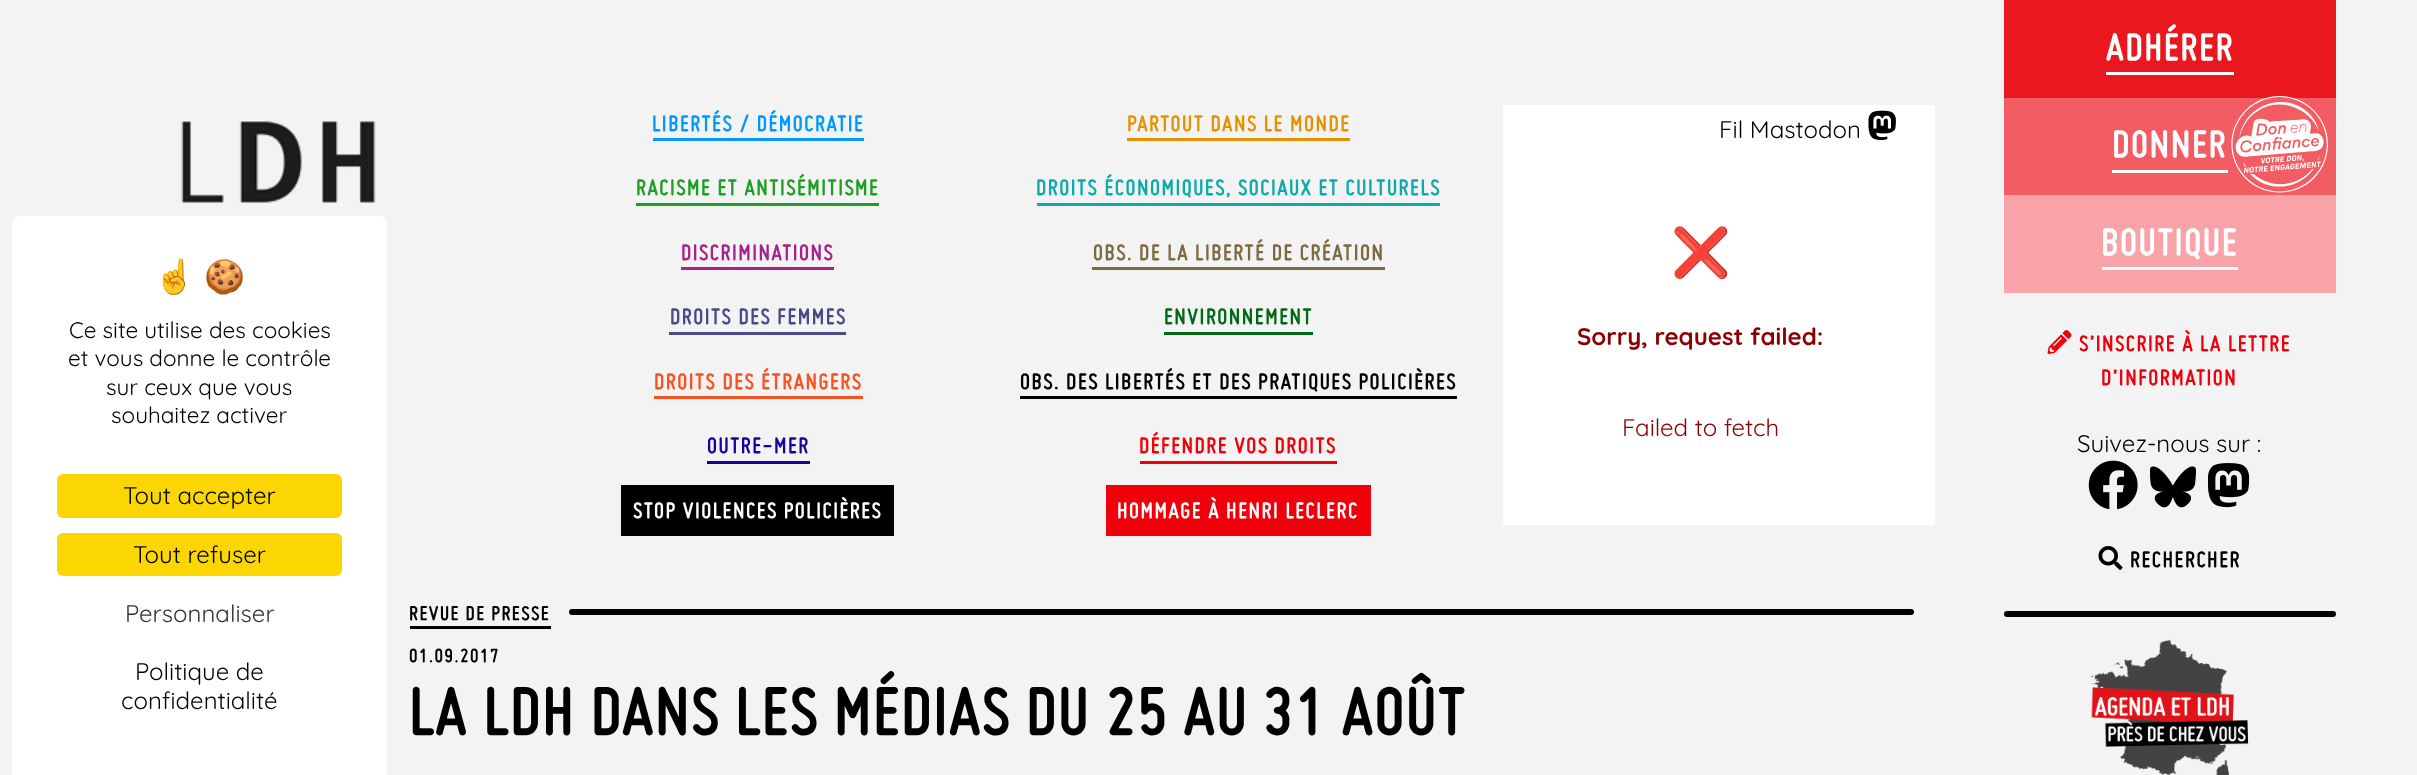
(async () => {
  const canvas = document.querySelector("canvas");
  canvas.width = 2417;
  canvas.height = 775;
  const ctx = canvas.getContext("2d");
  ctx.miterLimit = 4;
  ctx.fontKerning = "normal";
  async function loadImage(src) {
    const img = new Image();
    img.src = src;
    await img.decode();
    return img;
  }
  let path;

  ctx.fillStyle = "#f3f3f3";
  ctx.fillRect(0, 0, 2417, 775);
  ctx.fillStyle = "#ffffff";
  path = new Path2D("M20 216H379C383.5 216 387 219.5 387 224V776H12V224C12 219.5 15.5 216 20 216Z");
  ctx.fill(path);
  ctx.fillStyle = "#fbd600";
  ctx.beginPath();
  ctx.roundRect(57, 474, 285, 44, 6);
  ctx.fill();
  ctx.beginPath();
  ctx.roundRect(57, 533, 285, 43, 6);
  ctx.fill();
  ctx.drawImage(await loadImage("img/1.png"), 181, 120, 195, 83);
  for (const [x, y, w, h, color] of [
    [653, 138, 211, 3, "#0099ff"],
    [636, 203, 243, 3, "#1d9e24"],
    [681, 267, 153, 3, "#a9228b"],
    [669, 332, 177, 3, "#484b86"],
    [654, 396, 209, 3, "#fb511f"],
    [707, 461, 103, 3, "#1b019b"],
    [621, 485, 273, 51, "#000000"],
    [1127, 138, 223, 3, "#e59200"],
    [1037, 203, 403, 3, "#0faaaa"],
    [1092, 267, 293, 3, "#7c6a42"],
    [1164, 332, 149, 3, "#016814"],
    [1020, 396, 437, 3, "#000000"],
    [1140, 461, 197, 3, "#f0000a"],
    [1106, 485, 265, 51, "#f0000a"],
    [1503, 105, 432, 420, "#ffffff"],
  ]) {
    ctx.fillStyle = color;
    ctx.fillRect(x, y, w, h);
  }
  ctx.drawImage(await loadImage("img/2.png"), 1868, 110, 28, 31);
  ctx.fillStyle = "#000000";
  ctx.fillRect(410, 626, 141, 3);
  ctx.beginPath();
  ctx.roundRect(569, 609, 1345, 6, 3);
  ctx.fill();
  for (const [x, y, w, h, color] of [
    [2004, 0, 332, 98, "#eb171f"],
    [2106, 72, 128, 3, "#ffffff"],
    [2004, 98, 332, 97, "#f15d63"],
    [2112, 170, 116, 3, "#ffffff"],
  ]) {
    ctx.fillStyle = color;
    ctx.fillRect(x, y, w, h);
  }
  ctx.drawImage(await loadImage("img/3.png"), 2231, 96, 97, 97);
  ctx.fillStyle = "#f7a3a7";
  ctx.fillRect(2004, 195, 332, 98);
  ctx.fillStyle = "#ffffff";
  ctx.fillRect(2102, 267, 136, 3);
  ctx.drawImage(await loadImage("img/4.png"), 2047, 330, 25, 24);
  ctx.drawImage(await loadImage("img/5.png"), 2088, 460, 50, 50);
  ctx.drawImage(await loadImage("img/6.png"), 2150, 466, 46, 42);
  ctx.drawImage(await loadImage("img/7.png"), 2207, 463, 43, 45);
  ctx.drawImage(await loadImage("img/8.png"), 2098, 546, 25, 24);
  ctx.fillStyle = "#000000";
  ctx.beginPath();
  ctx.roundRect(2004, 611, 332, 6, 3);
  ctx.fill();
  ctx.drawImage(await loadImage("img/9.png"), 2091, 639, 158, 136);
  ctx.font = "33px Noto Color Emoji";
  ctx.fillText("☝️", 154, 288);
  ctx.fillText("🍪", 204, 288);
  ctx.font = "300 22.5px Quicksand";
  for (const [text, x, y] of [
    ["Ce site utilise des cookies", 69, 338],
    ["et vous donne le contrôle", 68, 366],
    ["sur ceux que vous", 106, 395],
    ["souhaitez activer", 111, 423],
  ]) {
    ctx.fillText(text, x, y);
  }
  ctx.font = "300 24px Quicksand";
  ctx.fillText("Tout accepter", 123, 504);
  ctx.fillText("Tout refuser", 133, 563);
  ctx.fillStyle = "#333333";
  ctx.fillText("Personnaliser", 125, 622);
  ctx.fillStyle = "#000000";
  ctx.fillText("Politique de", 135, 680);
  ctx.fillText("confidentialité", 121, 709);
  ctx.letterSpacing = "1.5px";
  ctx.font = "italic bold 24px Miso";
  ctx.fillStyle = "#0099ff";
  ctx.fillText("LIBERTÉS / DÉMOCRATIE", 652, 131);
  ctx.fillStyle = "#1d9e24";
  ctx.fillText("RACISME ET ANTISÉMITISME", 636, 195);
  ctx.fillStyle = "#a9228b";
  ctx.fillText("DISCRIMINATIONS", 681, 260);
  ctx.fillStyle = "#484b86";
  ctx.fillText("DROITS DES FEMMES", 670, 324);
  ctx.fillStyle = "#fb511f";
  ctx.fillText("DROITS DES ÉTRANGERS", 654, 389);
  ctx.fillStyle = "#1b019b";
  ctx.fillText("OUTRE-MER", 707, 453);
  ctx.fillStyle = "#ffffff";
  ctx.fillText("STOP VIOLENCES POLICIÈRES", 633, 518);
  ctx.fillStyle = "#e59200";
  ctx.fillText("PARTOUT DANS LE MONDE", 1127, 131);
  ctx.fillStyle = "#0faaaa";
  ctx.fillText("DROITS ÉCONOMIQUES, SOCIAUX ET CULTURELS", 1036, 195);
  ctx.fillStyle = "#7c6a42";
  ctx.fillText("OBS. DE LA LIBERTÉ DE CRÉATION", 1093, 260);
  ctx.fillStyle = "#016814";
  ctx.fillText("ENVIRONNEMENT", 1164, 324);
  ctx.fillStyle = "#000000";
  ctx.fillText("OBS. DES LIBERTÉS ET DES PRATIQUES POLICIÈRES", 1020, 389);
  ctx.fillStyle = "#f0000a";
  ctx.fillText("DÉFENDRE VOS DROITS", 1139, 453);
  ctx.fillStyle = "#ffffff";
  ctx.fillText("HOMMAGE À HENRI LECLERC", 1117, 518);
  ctx.letterSpacing = "0px";
  ctx.font = "300 24px Quicksand";
  ctx.fillStyle = "#000000";
  ctx.fillText("Fil Mastodon", 1719, 138);
  ctx.font = "48px Noto Color Emoji";
  ctx.fillStyle = "#8b0000";
  ctx.fillText("❌", 1671, 269);
  ctx.font = "300 24px 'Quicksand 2'";
  ctx.fillText("Sorry, request failed:", 1577, 345);
  ctx.font = "300 24px Quicksand";
  ctx.fillText("Failed to fetch", 1622, 436);
  ctx.letterSpacing = "1.5px";
  ctx.font = "italic bold 21.5px Miso";
  ctx.fillStyle = "#000000";
  ctx.fillText("REVUE DE PRESSE", 409, 620);
  ctx.font = "italic bold 20.5px Miso";
  ctx.fillText("01.09.2017", 409, 662);
  ctx.font = "italic bold 72px Miso";
  ctx.fillText("LA LDH DANS LES MÉDIAS DU 25 AU 31 AOÛT", 409, 734);
  ctx.font = "italic bold 41px Miso";
  ctx.fillStyle = "#ffffff";
  for (const [text, x, y] of [
    ["ADHÉRER", 2106, 60],
    ["DONNER", 2112, 157],
    ["BOUTIQUE", 2101, 255],
  ]) {
    ctx.fillText(text, x, y);
  }
  ctx.font = "italic bold 24px Miso";
  ctx.fillStyle = "#f0000a";
  ctx.fillText("S’INSCRIRE À LA LETTRE", 2079, 351);
  ctx.fillText("D’INFORMATION", 2101, 385);
  ctx.letterSpacing = "0px";
  ctx.font = "300 24px Quicksand";
  ctx.fillStyle = "#000000";
  ctx.fillText("Suivez-nous sur :", 2077, 452);
  ctx.letterSpacing = "1.5px";
  ctx.font = "italic bold 24px Miso";
  ctx.fillText("RECHERCHER", 2130, 567);
})();
